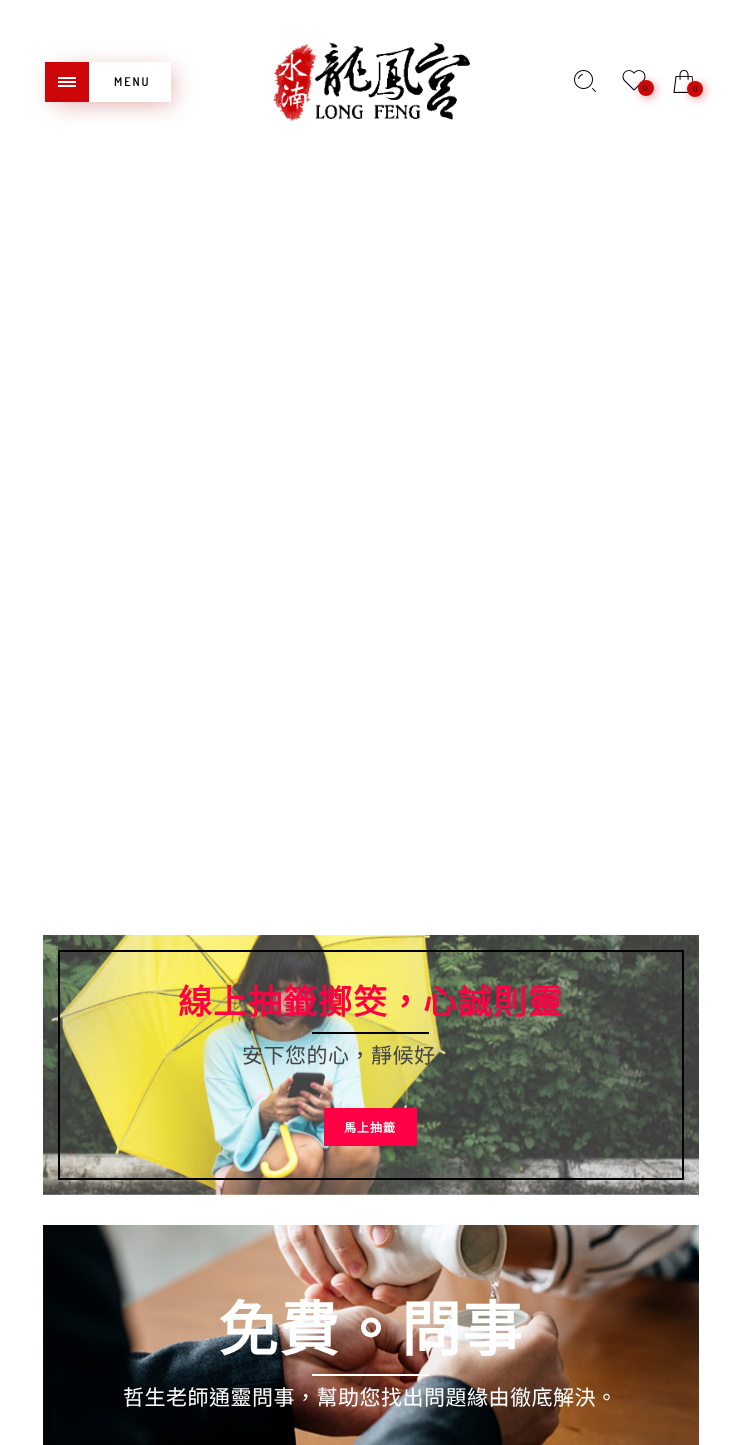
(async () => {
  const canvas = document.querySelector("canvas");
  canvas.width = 741;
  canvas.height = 1445;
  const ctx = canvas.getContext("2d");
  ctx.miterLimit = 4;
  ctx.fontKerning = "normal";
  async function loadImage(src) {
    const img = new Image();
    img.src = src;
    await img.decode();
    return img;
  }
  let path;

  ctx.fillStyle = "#ffffff";
  ctx.fillRect(0, 0, 741, 1445);
  ctx.save();
  path = new Path2D("M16 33H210V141H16ZM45 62H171V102H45Z");
  ctx.clip(path, "evenodd");
  ctx.fillStyle = "rgba(174, 6, 8, 0.4)";
  ctx.filter = "blur(12.5px)";
  ctx.beginPath();
  ctx.rect(55, 72, 116, 30);
  ctx.fill();
  ctx.filter = "none";
  ctx.restore();
  for (const [x, y, w, h, color] of [
    [45, 62, 44, 40, "#cd0709"],
    [58, 81, 18, 2, "#ffffff"],
    [58, 77, 18, 2, "#ffffff"],
    [58, 85, 18, 2, "#ffffff"],
  ]) {
    ctx.fillStyle = color;
    ctx.fillRect(x, y, w, h);
  }
  ctx.drawImage(await loadImage("img/1.png"), 273, 42, 197, 80);
  ctx.drawImage(await loadImage("img/2.png"), 574, 70, 22, 22);
  ctx.drawImage(await loadImage("img/3.png"), 622, 70, 24, 21);
  ctx.fillStyle = "rgba(174, 6, 8, 0.4)";
  ctx.filter = "blur(5px)";
  ctx.beginPath();
  ctx.roundRect(640, 82, 16, 16, 8);
  ctx.fill();
  ctx.filter = "none";
  ctx.fillStyle = "#cd0709";
  ctx.beginPath();
  ctx.arc(646, 88, 8, 0, Math.PI * 2);
  ctx.fill();
  ctx.drawImage(await loadImage("img/4.png"), 673, 70, 21, 23);
  ctx.fillStyle = "rgba(174, 6, 8, 0.4)";
  ctx.filter = "blur(5px)";
  ctx.beginPath();
  ctx.roundRect(689, 83, 16, 16, 8);
  ctx.fill();
  ctx.filter = "none";
  ctx.fillStyle = "#cd0709";
  ctx.beginPath();
  ctx.arc(695, 89, 8, 0, Math.PI * 2);
  ctx.fill();
  ctx.drawImage(await loadImage("img/5.png"), 43, 935, 656, 260);
  ctx.strokeStyle = "#000000";
  ctx.lineWidth = 2;
  ctx.strokeRect(59, 951, 624, 228);
  ctx.fillStyle = "#000000";
  ctx.fillRect(312, 1032, 117, 2);
  ctx.fillStyle = "#ff0044";
  ctx.fillRect(324, 1108, 93, 38);
  ctx.drawImage(await loadImage("img/6.png"), 43, 1225, 656, 220);
  ctx.fillStyle = "#ffffff";
  ctx.fillRect(312, 1374, 117, 2);
  ctx.letterSpacing = "2px";
  ctx.font = "600 12px Dosis";
  ctx.fillStyle = "#000000";
  ctx.fillText("MENU", 114, 86);
  ctx.letterSpacing = "0.5px";
  ctx.font = "9px Liberation Serif";
  ctx.fillText("0", 643, 91);
  ctx.fillText("0", 693, 92);
  ctx.letterSpacing = "1px";
  ctx.font = "bold 34px Noto Sans CJK TC";
  ctx.fillStyle = "#ff0044";
  ctx.fillText("線上抽籤擲筊，心誠則靈", 178, 1014);
  ctx.letterSpacing = "0.5px";
  ctx.font = "21px Noto Sans CJK TC";
  ctx.fillStyle = "#444444";
  ctx.fillText("安下您的心，靜候好", 242, 1063);
  ctx.letterSpacing = "1px";
  ctx.font = "bold 12px Noto Sans CJK TC";
  ctx.fillStyle = "#ffffff";
  ctx.fillText("馬上抽籤", 344, 1132);
  ctx.font = "bold 60px Noto Sans CJK TC";
  ctx.fillText("免費。問事", 218, 1351);
  ctx.letterSpacing = "0.5px";
  ctx.font = "21px Noto Sans CJK TC";
  ctx.fillText("哲生老師通靈問事，幫助您找出問題緣由徹底解決。", 123, 1405);
})();
